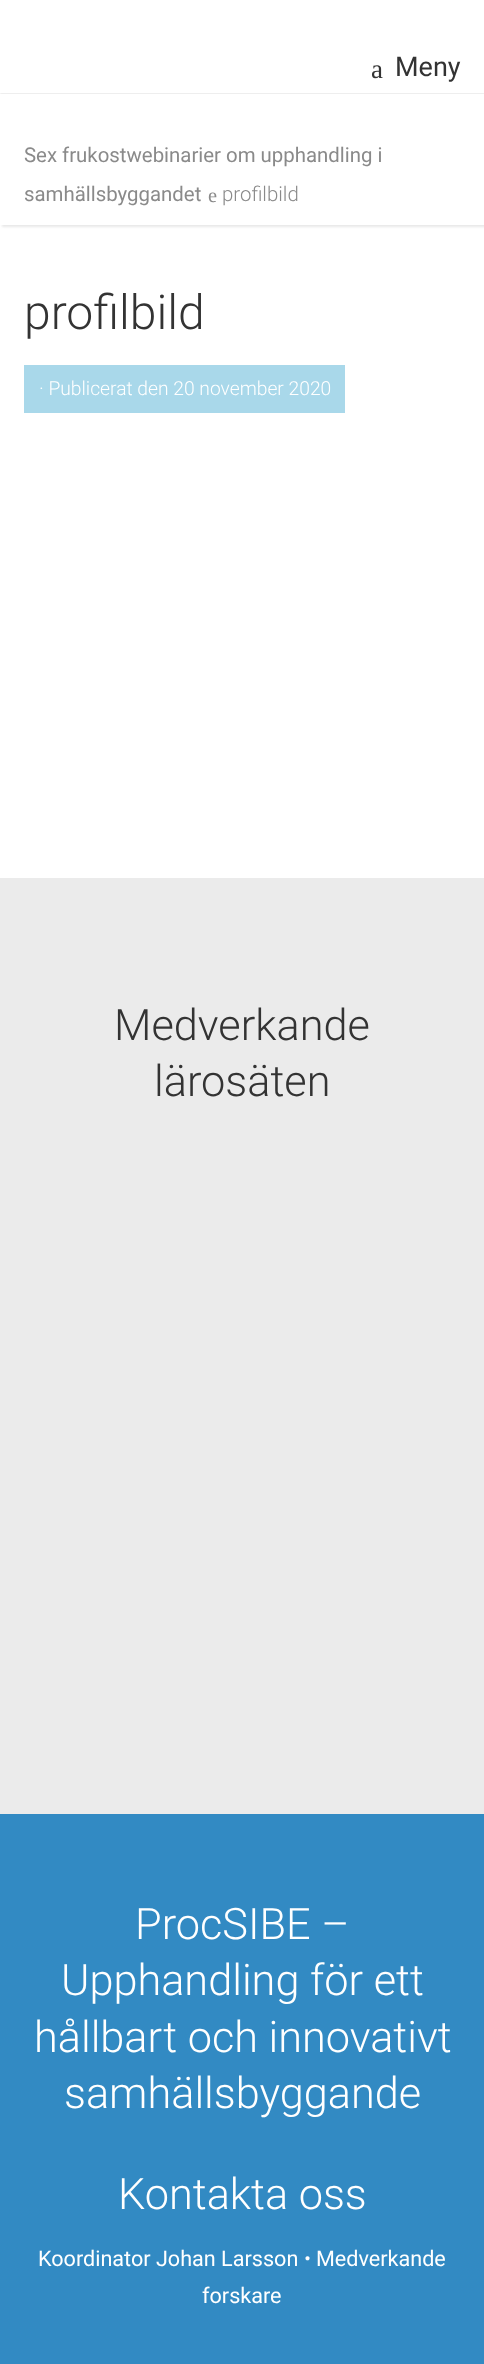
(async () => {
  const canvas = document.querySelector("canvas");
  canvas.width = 484;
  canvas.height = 2364;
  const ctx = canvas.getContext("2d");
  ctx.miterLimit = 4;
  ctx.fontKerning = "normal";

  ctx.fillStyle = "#ffffff";
  ctx.fillRect(0, 0, 484, 2364);
  ctx.save();
  ctx.beginPath();
  ctx.rect(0, 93, 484, 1);
  ctx.clip();
  ctx.fillStyle = "rgba(0, 0, 0, 0.2)";
  ctx.filter = "blur(1px)";
  ctx.beginPath();
  ctx.rect(0, 0, 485, 93);
  ctx.fill();
  ctx.filter = "none";
  ctx.restore();
  ctx.save();
  ctx.beginPath();
  ctx.rect(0, 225, 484, 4);
  ctx.clip();
  ctx.fillStyle = "#e8e8e8";
  ctx.filter = "blur(1px)";
  ctx.beginPath();
  ctx.rect(2, 128, 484, 99);
  ctx.fill();
  ctx.filter = "none";
  ctx.restore();
  for (const [x, y, w, h, color] of [
    [24, 365, 321, 48, "#a9d8ea"],
    [0, 878, 484, 936, "#ebebeb"],
    [0, 1814, 484, 550, "#328ac3"],
  ]) {
    ctx.fillStyle = color;
    ctx.fillRect(x, y, w, h);
  }
  ctx.font = "27px Liberation Serif";
  ctx.fillStyle = "#333333";
  ctx.fillText("a", 371, 78);
  ctx.font = "27px Roboto";
  ctx.fillText("Meny", 395, 76);
  ctx.font = "20.4px Roboto";
  ctx.fillStyle = "#8a8a8a";
  ctx.fillText("Sex frukostwebinarier om upphandling i", 24, 162);
  ctx.fillText("samhällsbyggandet", 24, 201);
  ctx.font = "20.4px Liberation Serif";
  ctx.fillText("e", 208, 202);
  ctx.font = "300 20.4px Roboto";
  ctx.fillText("profilbild", 222, 201);
  ctx.font = "300 48px Roboto";
  ctx.fillStyle = "#333333";
  ctx.fillText("profilbild", 24, 329);
  ctx.font = "300 19.25px Roboto";
  ctx.fillStyle = "#ffffff";
  ctx.fillText("· Publicerat den 20 november 2020", 39, 395);
  ctx.font = "300 43.25px Roboto";
  ctx.fillStyle = "#333333";
  ctx.fillText("Medverkande", 114, 1040);
  ctx.fillText("lärosäten", 154, 1096);
  ctx.fillStyle = "#ffffff";
  for (const [text, x, y] of [
    ["ProcSIBE –", 135, 1939],
    ["Upphandling för ett", 61, 1995],
    ["hållbart och innovativt", 34, 2052],
    ["samhällsbyggande", 64, 2108],
    ["Kontakta oss", 118, 2209],
  ]) {
    ctx.fillText(text, x, y);
  }
  ctx.font = "21.6px Roboto";
  ctx.fillText("Koordinator Johan Larsson", 38, 2266);
  ctx.font = "300 21.6px Roboto";
  ctx.fillText("•", 304, 2266);
  ctx.font = "21.6px Roboto";
  ctx.fillText("Medverkande", 316, 2266);
  ctx.fillText("forskare", 202, 2303);
})();
